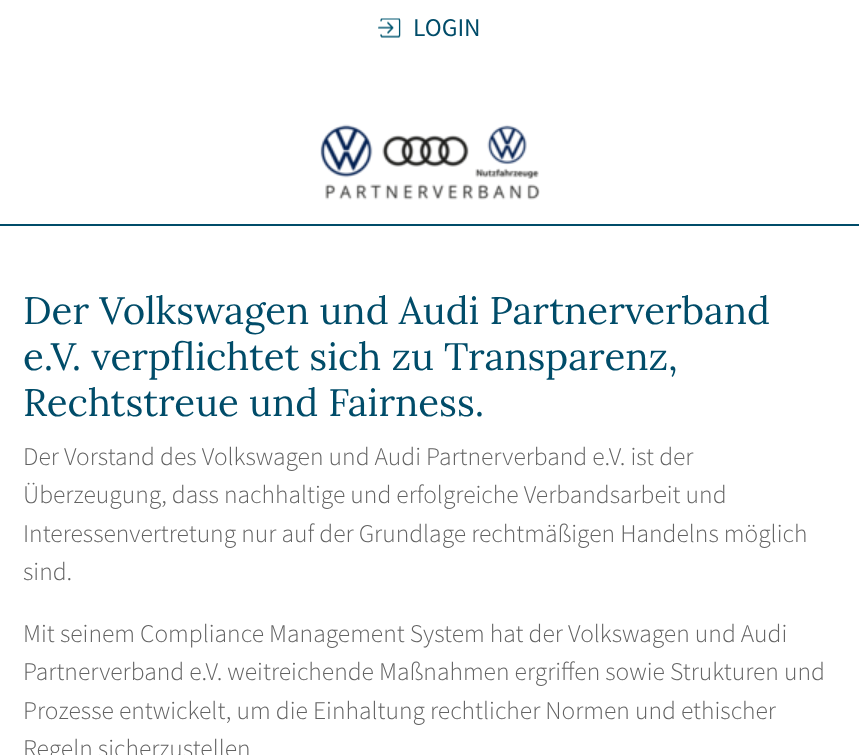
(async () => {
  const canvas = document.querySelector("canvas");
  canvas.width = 859;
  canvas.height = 755;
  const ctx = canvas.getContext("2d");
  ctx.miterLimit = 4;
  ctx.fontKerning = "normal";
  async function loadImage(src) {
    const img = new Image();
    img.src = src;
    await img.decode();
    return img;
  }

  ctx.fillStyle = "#ffffff";
  ctx.fillRect(0, 0, 859, 755);
  ctx.drawImage(await loadImage("img/1.png"), 378, 18, 23, 20);
  ctx.drawImage(await loadImage("img/2.png"), 320, 124, 220, 76);
  ctx.fillStyle = "#004c69";
  ctx.fillRect(0, 224, 859, 2);
  ctx.font = "25.5px Source Sans Pro";
  ctx.fillText("LOGIN", 413, 36);
  ctx.font = "38.4px Lora";
  for (const [text, x, y] of [
    ["Der Volkswagen und Audi Partnerverband", 23, 324],
    ["e.V. verpflichtet sich zu Transparenz,", 23, 370],
    ["Rechtstreue und Fairness.", 23, 416],
  ]) {
    ctx.fillText(text, x, y);
  }
  ctx.font = "300 25.5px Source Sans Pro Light";
  ctx.fillStyle = "#636363";
  for (const [text, x, y] of [
    ["Der Vorstand des Volkswagen und Audi Partnerverband e.V. ist der", 23, 465],
    ["Überzeugung, dass nachhaltige und erfolgreiche Verbandsarbeit und", 23, 503],
    ["Interessenvertretung nur auf der Grundlage rechtmäßigen Handelns möglich", 23, 542],
    ["sind.", 23, 580],
    ["Mit seinem Compliance Management System hat der Volkswagen und Audi", 23, 642],
    ["Partnerverband e.V. weitreichende Maßnahmen ergriffen sowie Strukturen und", 23, 680],
    ["Prozesse entwickelt, um die Einhaltung rechtlicher Normen und ethischer", 23, 719],
    ["Regeln sicherzustellen", 23, 757],
  ]) {
    ctx.fillText(text, x, y);
  }
})();
